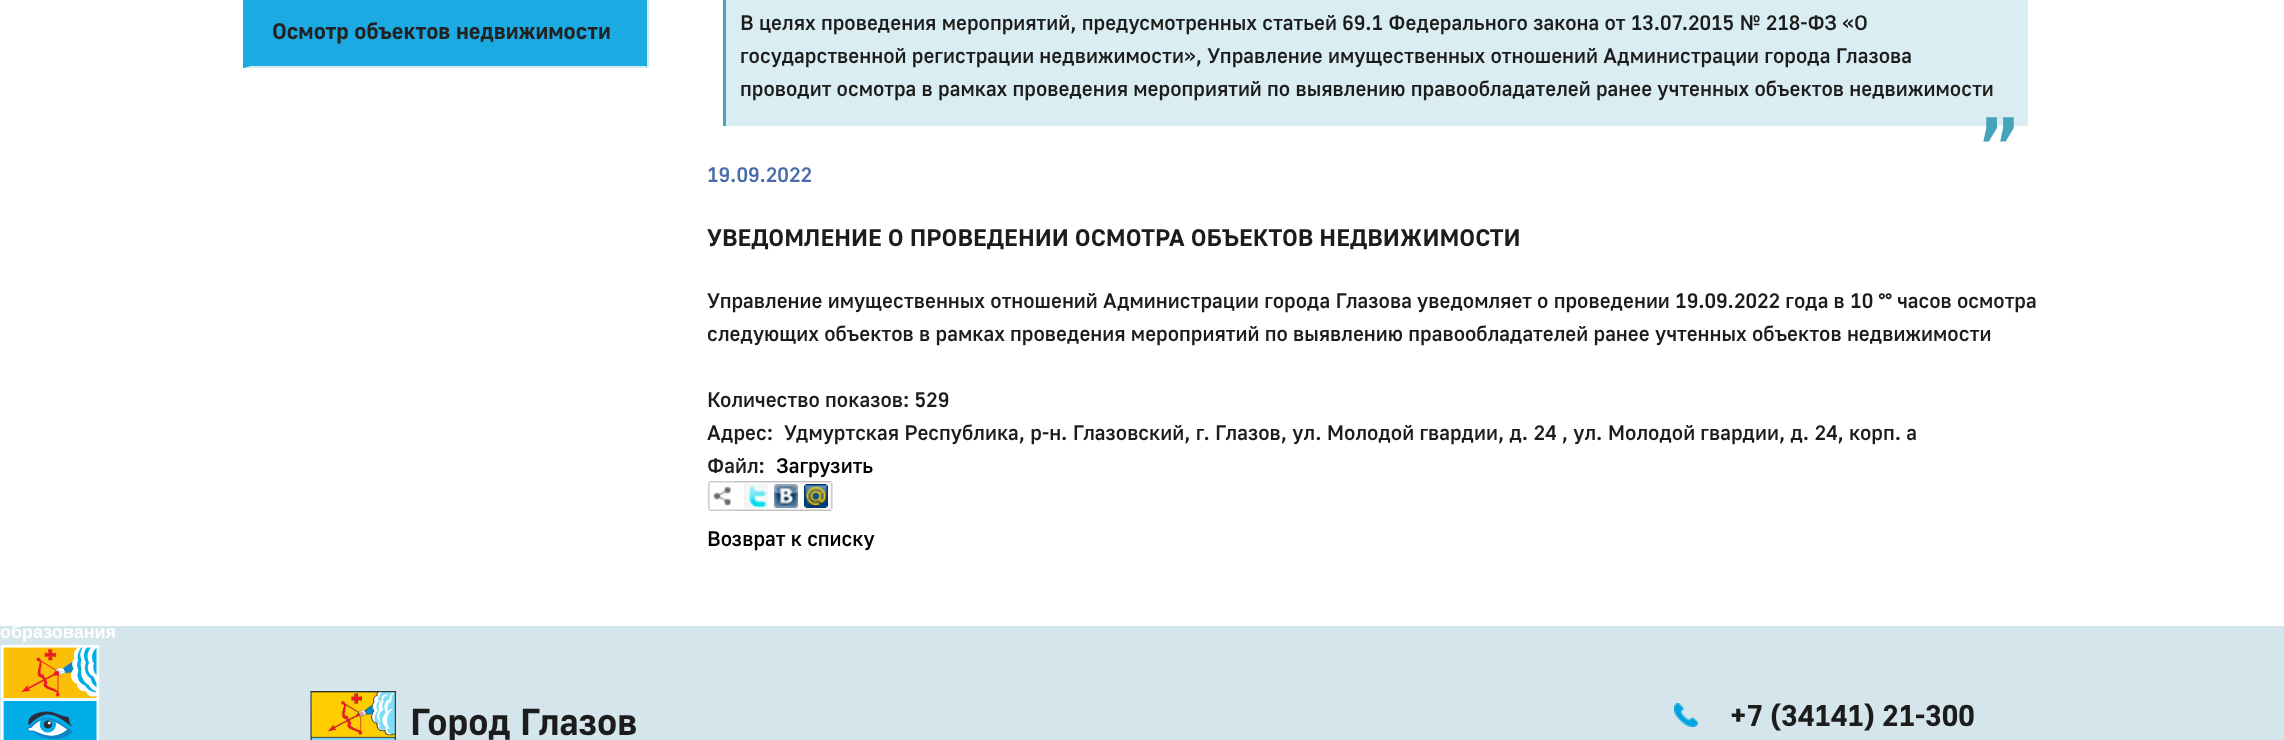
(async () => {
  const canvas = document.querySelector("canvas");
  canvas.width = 2284;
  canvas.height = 740;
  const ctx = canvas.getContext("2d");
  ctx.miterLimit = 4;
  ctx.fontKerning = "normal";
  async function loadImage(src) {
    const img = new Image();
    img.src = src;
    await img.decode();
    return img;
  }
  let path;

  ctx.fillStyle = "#ffffff";
  ctx.fillRect(0, 0, 2284, 740);
  ctx.fillStyle = "#1caae3";
  ctx.fillRect(243, 0, 404, 68);
  ctx.fillStyle = "#d8eaf4";
  ctx.fillRect(647, 0, 2, 68);
  path = new Path2D("M648 68H243L250 66H646Z");
  ctx.fill(path);
  ctx.fillStyle = "#1caae3";
  path = new Path2D("M243 68V-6H250V66Z");
  ctx.fill(path);
  ctx.fillStyle = "#daedf2";
  ctx.fillRect(726, 0, 1302, 126);
  ctx.fillStyle = "#45a3ba";
  ctx.fillRect(723, 0, 3, 126);
  ctx.drawImage(await loadImage("img/1.png"), 708, 481, 27, 30);
  ctx.drawImage(await loadImage("img/2.png"), 735, 481, 98, 30);
  ctx.drawImage(await loadImage("img/3.png"), 744, 484, 24, 24);
  ctx.drawImage(await loadImage("img/4.png"), 774, 484, 24, 24);
  ctx.drawImage(await loadImage("img/5.png"), 804, 484, 24, 24);
  ctx.fillStyle = "#d5e5ec";
  ctx.fillRect(0, 626, 2284, 114);
  ctx.drawImage(await loadImage("img/6.png"), 0, 644, 100, 96);
  ctx.drawImage(await loadImage("img/7.png"), 310, 691, 86, 49);
  ctx.drawImage(await loadImage("img/8.png"), 1674, 703, 24, 24);
  ctx.font = "bold 22.5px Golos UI";
  ctx.fillStyle = "#222222";
  ctx.fillText("Осмотр объектов недвижимости", 272, 39);
  ctx.font = "500 21px Golos UI";
  ctx.fillStyle = "#1c1c1c";
  for (const [text, x, y] of [
    ["В целях проведения мероприятий, предусмотренных статьей 69.1 Федерального закона от 13.07.2015 № 218-ФЗ «О", 740, 30],
    ["государственной регистрации недвижимости», Управление имущественных отношений Администрации города Глазова", 740, 63],
    ["проводит осмотра в рамках проведения мероприятий по выявлению правообладателей ранее учтенных объектов недвижимости", 740, 96],
  ]) {
    ctx.fillText(text, x, y);
  }
  ctx.font = "500 84px Golos UI";
  ctx.fillStyle = "#45a3ba";
  ctx.fillText("”", 1979, 176);
  ctx.font = "500 21px Golos UI";
  ctx.fillStyle = "#486daa";
  ctx.fillText("19.09.2022", 707, 182);
  ctx.font = "bold 24px Golos UI";
  ctx.fillStyle = "#1c1c1c";
  ctx.fillText("УВЕДОМЛЕНИЕ О ПРОВЕДЕНИИ ОСМОТРА ОБЪЕКТОВ НЕДВИЖИМОСТИ", 707, 246);
  ctx.font = "500 21px Golos UI";
  for (const [text, x, y] of [
    ["Управление имущественных отношений Администрации города Глазова уведомляет о проведении 19.09.2022 года в 10 °° часов осмотра", 707, 308],
    ["следующих объектов в рамках проведения мероприятий по выявлению правообладателей ранее учтенных объектов недвижимости", 707, 341],
    ["Количество показов: 529", 707, 407],
    ["Адрес:", 707, 440],
    ["Удмуртская Республика, р-н. Глазовский, г. Глазов, ул. Молодой гвардии, д. 24 , ул. Молодой гвардии, д. 24, корп. а", 784, 440],
    ["Файл:", 707, 473],
  ]) {
    ctx.fillText(text, x, y);
  }
  ctx.fillStyle = "#000000";
  ctx.fillText("Загрузить", 776, 473);
  ctx.fillText("Возврат к списку", 707, 546);
  ctx.font = "bold 18px Liberation Sans";
  ctx.fillStyle = "#ffffff";
  ctx.fillText("образования", 0, 638);
  ctx.font = "bold 37.5px Golos UI";
  ctx.fillStyle = "#1c1c1c";
  ctx.fillText("Город Глазов", 410, 735);
  ctx.font = "bold 30px Golos UI";
  ctx.fillText("+7 (34141) 21-300", 1730, 726);
})();
